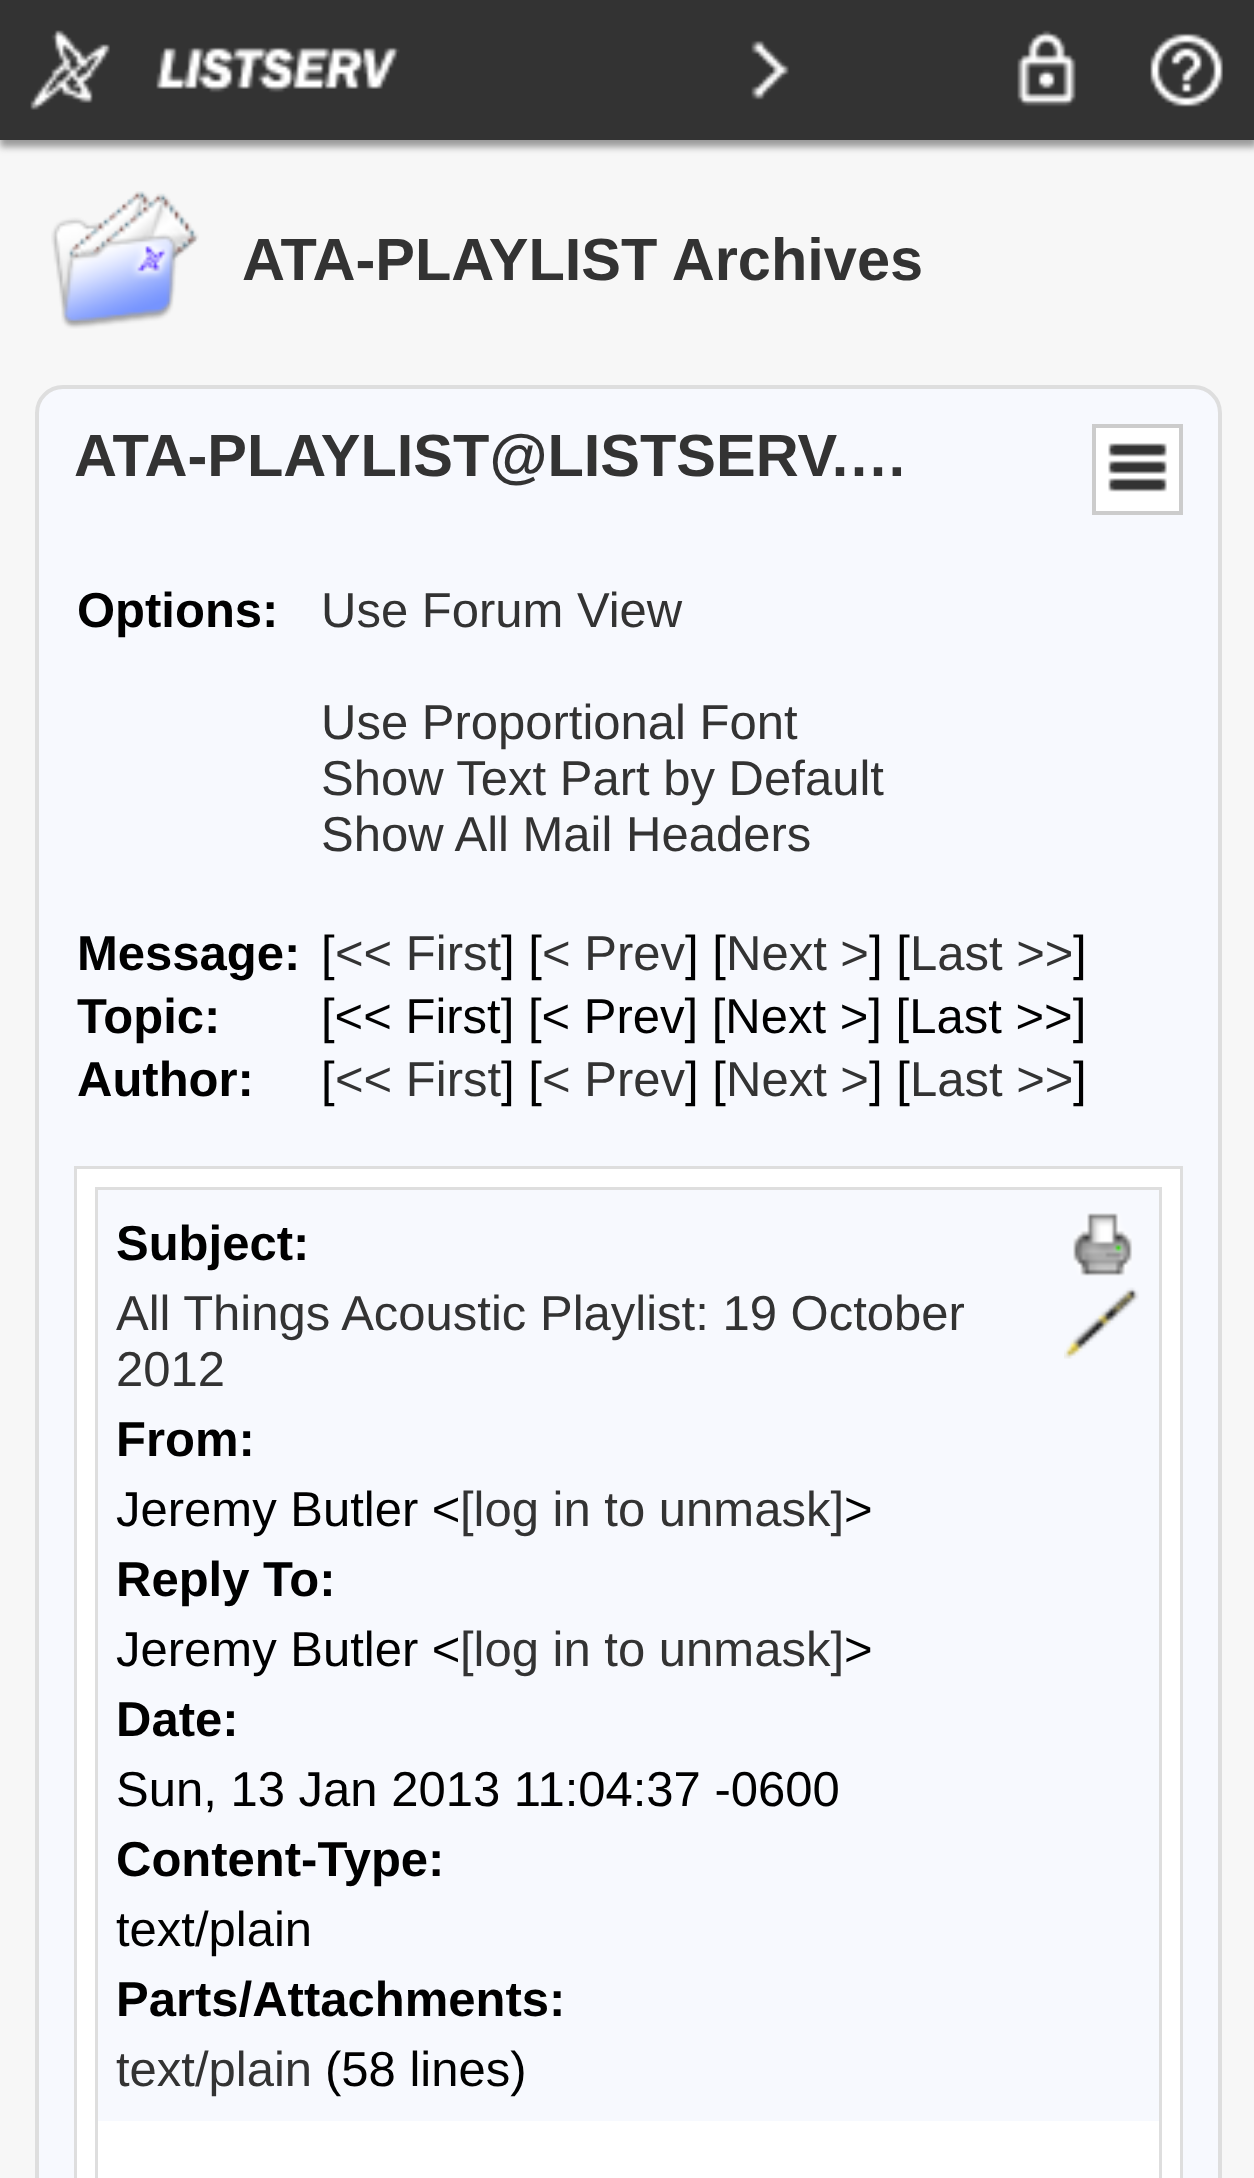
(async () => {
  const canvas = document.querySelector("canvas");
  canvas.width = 1254;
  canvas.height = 2178;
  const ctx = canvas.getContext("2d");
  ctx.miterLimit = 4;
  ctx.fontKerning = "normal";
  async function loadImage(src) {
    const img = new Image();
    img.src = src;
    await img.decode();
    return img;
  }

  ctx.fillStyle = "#f7f7f7";
  ctx.fillRect(0, 0, 1254, 2178);
  ctx.fillStyle = "#999999";
  ctx.filter = "blur(3.5px)";
  ctx.beginPath();
  ctx.rect(0, 7, 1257, 140);
  ctx.fill();
  ctx.filter = "none";
  ctx.fillStyle = "#333333";
  ctx.fillRect(0, 0, 1254, 140);
  ctx.drawImage(await loadImage("img/1.png"), 30, 30, 80, 80);
  ctx.drawImage(await loadImage("img/2.png"), 156, 47, 244, 46);
  ctx.drawImage(await loadImage("img/3.png"), 751, 40, 38, 60);
  ctx.drawImage(await loadImage("img/4.png"), 1017, 30, 59, 77);
  ctx.drawImage(await loadImage("img/5.png"), 1150, 33, 73, 74);
  ctx.drawImage(await loadImage("img/6.png"), 51, 191, 148, 138);
  ctx.fillStyle = "#f7f9fe";
  ctx.beginPath();
  ctx.roundRect(37, 387, 1183, 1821, 26);
  ctx.fill();
  ctx.strokeStyle = "#dedede";
  ctx.lineWidth = 4;
  ctx.stroke();
  ctx.fillStyle = "#ffffff";
  ctx.beginPath();
  ctx.rect(1094, 426, 87, 87);
  ctx.fill();
  ctx.strokeStyle = "#cccccc";
  ctx.stroke();
  ctx.drawImage(await loadImage("img/7.png"), 1108, 443, 59, 49);
  ctx.strokeStyle = "#dedede";
  ctx.strokeRect(76, 1168, 1105, 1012);
  ctx.fillRect(77, 1169, 1103, 1009);
  ctx.strokeRect(97, 1189, 1063, 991);
  ctx.fillStyle = "#f7f9fe";
  ctx.fillRect(98, 1190, 1061, 931);
  ctx.drawImage(await loadImage("img/8.png"), 1073, 1213, 59, 63);
  ctx.drawImage(await loadImage("img/9.png"), 1064, 1287, 75, 72);
  ctx.fillStyle = "#ffffff";
  ctx.fillRect(98, 2121, 1061, 57);
  ctx.font = "bold 59.5px Liberation Sans";
  ctx.fillStyle = "#333333";
  ctx.fillText("ATA-PLAYLIST Archives", 242, 280);
  ctx.fillText("ATA-PLAYLIST@LISTSERV.…", 74, 476);
  ctx.font = "bold 49px Liberation Sans";
  ctx.fillStyle = "#000000";
  ctx.fillText("Options:", 77, 627);
  ctx.font = "49px Liberation Sans";
  ctx.fillStyle = "#333333";
  for (const [text, x, y] of [
    ["Use Forum View", 321, 627],
    ["Use Proportional Font", 321, 739],
    ["Show Text Part by Default", 321, 795],
    ["Show All Mail Headers", 321, 851],
  ]) {
    ctx.fillText(text, x, y);
  }
  ctx.font = "bold 49px Liberation Sans";
  ctx.fillStyle = "#000000";
  ctx.fillText("Message:", 77, 970);
  ctx.font = "49px Liberation Sans";
  ctx.fillText("[", 321, 970);
  ctx.fillStyle = "#333333";
  ctx.fillText("<< First", 335, 970);
  ctx.fillStyle = "#000000";
  ctx.fillText("] [", 501, 970);
  ctx.fillStyle = "#333333";
  ctx.fillText("< Prev", 542, 970);
  ctx.fillStyle = "#000000";
  ctx.fillText("] [", 685, 970);
  ctx.fillStyle = "#333333";
  ctx.fillText("Next >", 726, 970);
  ctx.fillStyle = "#000000";
  ctx.fillText("] [", 869, 970);
  ctx.fillStyle = "#333333";
  ctx.fillText("Last >>", 910, 970);
  ctx.fillStyle = "#000000";
  ctx.fillText("]", 1073, 970);
  ctx.font = "bold 49px Liberation Sans";
  ctx.fillText("Topic:", 77, 1033);
  ctx.font = "49px Liberation Sans";
  ctx.fillText("[<< First] [< Prev] [Next >] [Last >>]", 321, 1033);
  ctx.font = "bold 49px Liberation Sans";
  ctx.fillText("Author:", 77, 1096);
  ctx.font = "49px Liberation Sans";
  ctx.fillText("[", 321, 1096);
  ctx.fillStyle = "#333333";
  ctx.fillText("<< First", 335, 1096);
  ctx.fillStyle = "#000000";
  ctx.fillText("] [", 501, 1096);
  ctx.fillStyle = "#333333";
  ctx.fillText("< Prev", 542, 1096);
  ctx.fillStyle = "#000000";
  ctx.fillText("] [", 685, 1096);
  ctx.fillStyle = "#333333";
  ctx.fillText("Next >", 726, 1096);
  ctx.fillStyle = "#000000";
  ctx.fillText("] [", 869, 1096);
  ctx.fillStyle = "#333333";
  ctx.fillText("Last >>", 910, 1096);
  ctx.fillStyle = "#000000";
  ctx.fillText("]", 1073, 1096);
  ctx.font = "bold 49px Liberation Sans";
  ctx.fillText("Subject:", 116, 1260);
  ctx.font = "49px Liberation Sans";
  ctx.fillStyle = "#333333";
  ctx.fillText("All Things Acoustic Playlist: 19 October", 116, 1330);
  ctx.fillText("2012", 116, 1386);
  ctx.font = "bold 49px Liberation Sans";
  ctx.fillStyle = "#000000";
  ctx.fillText("From:", 116, 1456);
  ctx.font = "49px Liberation Sans";
  ctx.fillText("Jeremy Butler <", 116, 1526);
  ctx.fillStyle = "#333333";
  ctx.fillText("[log in to unmask]", 460, 1526);
  ctx.fillStyle = "#000000";
  ctx.fillText(">", 844, 1526);
  ctx.font = "bold 49px Liberation Sans";
  ctx.fillText("Reply To:", 116, 1596);
  ctx.font = "49px Liberation Sans";
  ctx.fillText("Jeremy Butler <", 116, 1666);
  ctx.fillStyle = "#333333";
  ctx.fillText("[log in to unmask]", 460, 1666);
  ctx.fillStyle = "#000000";
  ctx.fillText(">", 844, 1666);
  ctx.font = "bold 49px Liberation Sans";
  ctx.fillText("Date:", 116, 1736);
  ctx.font = "49px Liberation Sans";
  ctx.fillText("Sun, 13 Jan 2013 11:04:37 -0600", 116, 1806);
  ctx.font = "bold 49px Liberation Sans";
  ctx.fillText("Content-Type:", 116, 1876);
  ctx.font = "49px Liberation Sans";
  ctx.fillText("text/plain", 116, 1946);
  ctx.font = "bold 49px Liberation Sans";
  ctx.fillText("Parts/Attachments:", 116, 2016);
  ctx.font = "49px Liberation Sans";
  ctx.fillStyle = "#333333";
  ctx.fillText("text/plain", 116, 2086);
  ctx.fillStyle = "#000000";
  ctx.fillText("(58 lines)", 325, 2086);
})();
